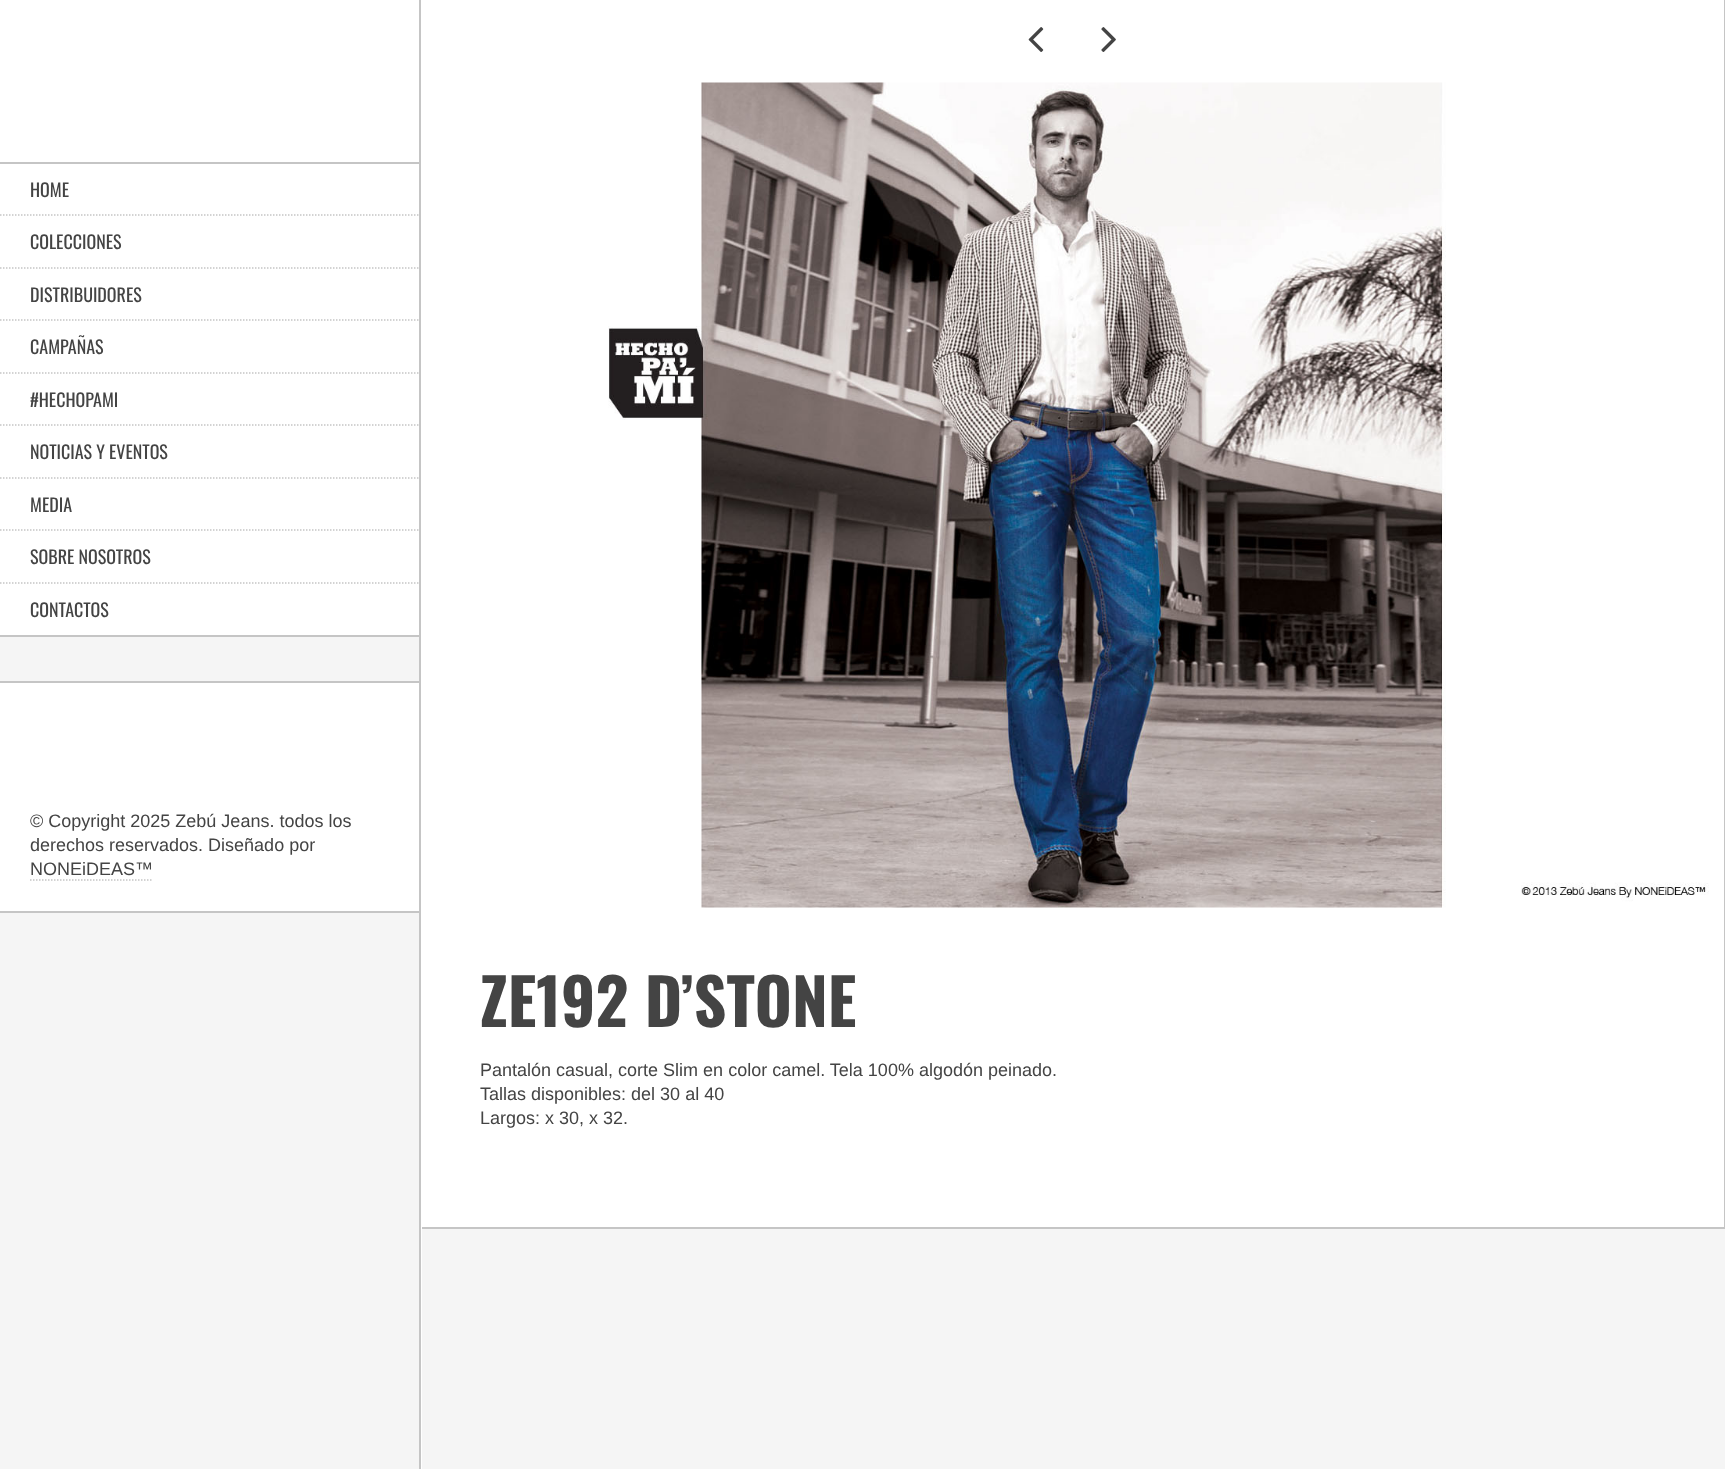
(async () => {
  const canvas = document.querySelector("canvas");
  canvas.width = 1725;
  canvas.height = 1469;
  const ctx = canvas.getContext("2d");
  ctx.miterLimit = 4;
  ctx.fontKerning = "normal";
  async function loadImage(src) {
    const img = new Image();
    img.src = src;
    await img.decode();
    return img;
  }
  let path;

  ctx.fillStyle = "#f5f5f5";
  ctx.fillRect(0, 0, 1725, 1469);
  ctx.fillStyle = "#ffffff";
  path = new Path2D("M-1-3V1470H0V0H420V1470H422V-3Z");
  ctx.fill(path);
  for (const [x, y, w, h, color] of [
    [419, 0, 2, 1469, "#c5c5c5"],
    [0, 0, 419, 162, "#ffffff"],
    [0, 162, 419, 2, "#c5c5c5"],
    [0, 164, 419, 471, "#ffffff"],
  ]) {
    ctx.fillStyle = color;
    ctx.fillRect(x, y, w, h);
  }
  path = new Path2D("M0 215H418.5");
  ctx.strokeStyle = "#c5c5c5";
  ctx.lineWidth = 1.5;
  ctx.setLineDash([1.5, 1.5]);
  ctx.stroke(path);
  path = new Path2D("M0 268H418.5");
  ctx.stroke(path);
  path = new Path2D("M0 320H418.5");
  ctx.stroke(path);
  path = new Path2D("M0 373H418.5");
  ctx.stroke(path);
  path = new Path2D("M0 425H418.5");
  ctx.stroke(path);
  path = new Path2D("M0 478H418.5");
  ctx.stroke(path);
  path = new Path2D("M0 530H418.5");
  ctx.stroke(path);
  path = new Path2D("M0 583H418.5");
  ctx.stroke(path);
  for (const [x, y, w, h, color] of [
    [0, 635, 419, 2, "#c5c5c5"],
    [0, 681, 419, 2, "#c5c5c5"],
    [0, 683, 419, 228, "#ffffff"],
    [0, 911, 419, 2, "#c5c5c5"],
  ]) {
    ctx.fillStyle = color;
    ctx.fillRect(x, y, w, h);
  }
  path = new Path2D("M30 880H153");
  ctx.stroke(path);
  for (const [x, y, w, h, color] of [
    [422, 0, 1302, 1227, "#ffffff"],
    [1724, 0, 1, 1229, "#c5c5c5"],
    [422, 1227, 1303, 2, "#c5c5c5"],
  ]) {
    ctx.fillStyle = color;
    ctx.fillRect(x, y, w, h);
  }
  ctx.drawImage(await loadImage("img/1.png"), 1028, 27, 16, 25);
  ctx.drawImage(await loadImage("img/2.png"), 1101, 27, 15, 25);
  ctx.drawImage(await loadImage("img/3.png"), 608, 82, 1101, 826);
  ctx.font = "18px Oswald";
  ctx.fillStyle = "#444444";
  for (const [text, x, y] of [
    ["HOME", 30, 197],
    ["COLECCIONES", 30, 249],
    ["DISTRIBUIDORES", 30, 302],
    ["CAMPAÑAS", 30, 354],
    ["#HECHOPAMI", 30, 407],
    ["NOTICIAS Y EVENTOS", 30, 459],
    ["MEDIA", 30, 512],
    ["SOBRE NOSOTROS", 30, 564],
    ["CONTACTOS", 30, 617],
  ]) {
    ctx.fillText(text, x, y);
  }
  ctx.font = "18px Liberation Sans";
  for (const [text, x, y] of [
    ["© Copyright 2025 Zebú Jeans. todos los", 30, 827],
    ["derechos reservados. Diseñado por", 30, 851],
    ["NONEiDEAS™", 30, 875],
  ]) {
    ctx.fillText(text, x, y);
  }
  ctx.font = "bold 64px Oswald";
  ctx.fillText("ZE192 D’STONE", 480, 1027);
  ctx.font = "18px Liberation Sans";
  for (const [text, x, y] of [
    ["Pantalón casual, corte Slim en color camel. Tela 100% algodón peinado.", 480, 1076],
    ["Tallas disponibles: del 30 al 40", 480, 1100],
    ["Largos: x 30, x 32.", 480, 1124],
  ]) {
    ctx.fillText(text, x, y);
  }
})();
